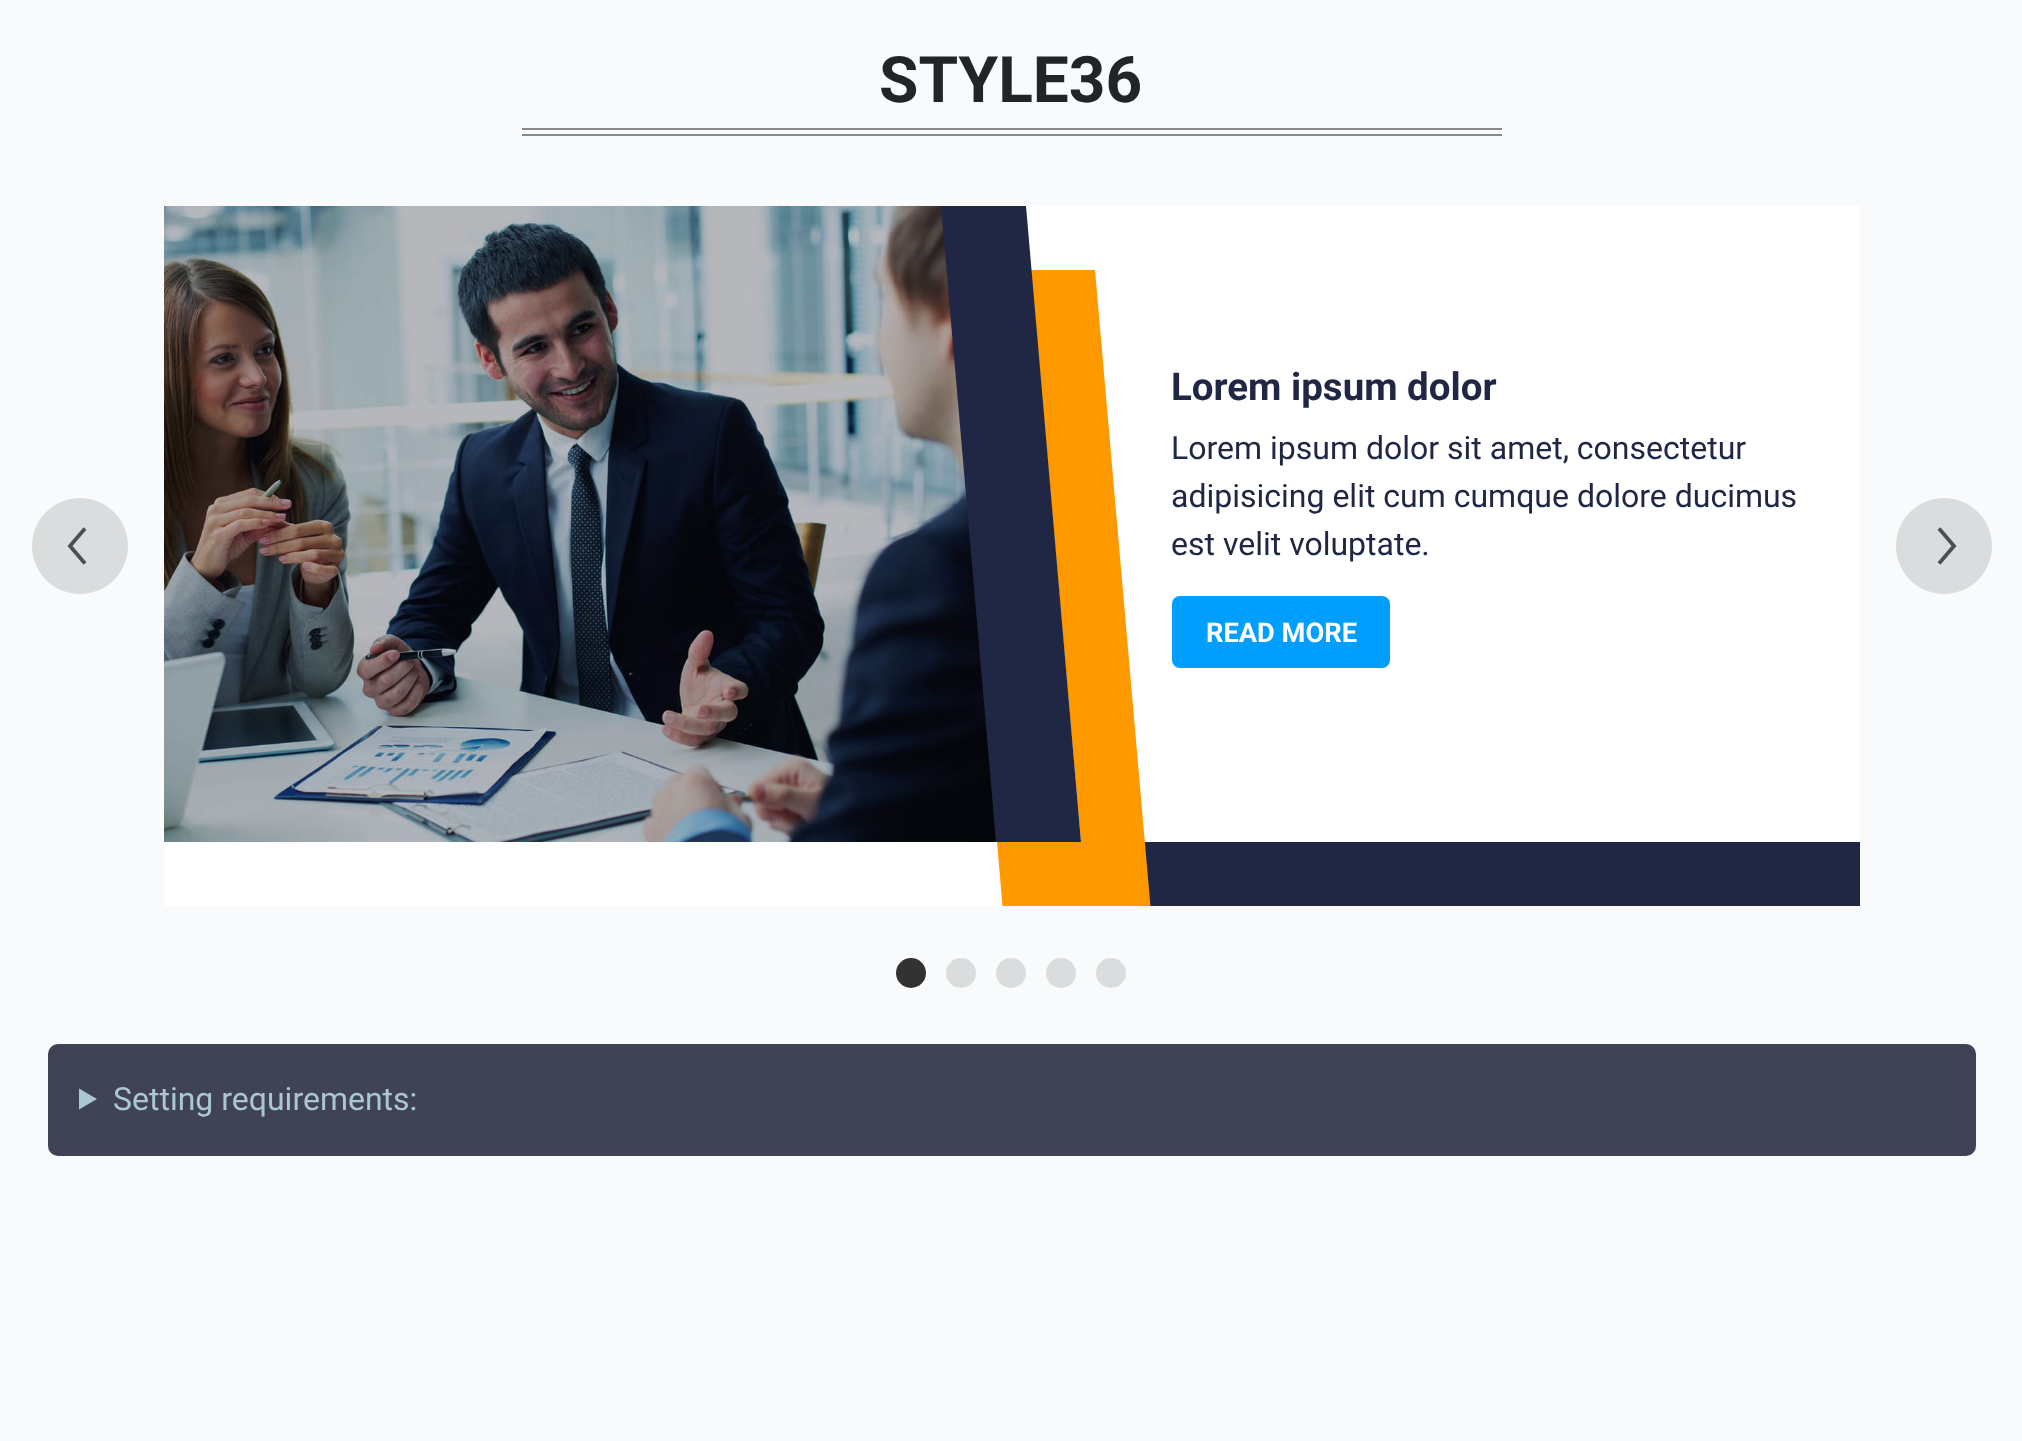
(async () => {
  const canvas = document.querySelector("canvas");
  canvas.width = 2022;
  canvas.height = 1441;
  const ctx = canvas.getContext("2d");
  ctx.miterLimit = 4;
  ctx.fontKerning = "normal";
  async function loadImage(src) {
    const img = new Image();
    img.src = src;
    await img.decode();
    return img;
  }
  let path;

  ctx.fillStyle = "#f8fafb";
  ctx.fillRect(0, 0, 2022, 1441);
  for (const [x, y, w, h, color] of [
    [522, 128, 980, 2, "#888888"],
    [522, 134, 980, 2, "#888888"],
    [164, 206, 1696, 700, "#ffffff"],
  ]) {
    ctx.fillStyle = color;
    ctx.fillRect(x, y, w, h);
  }
  ctx.drawImage(await loadImage("img/1.png"), 164, 206, 832, 636);
  ctx.fillStyle = "#202744";
  ctx.fillRect(1144, 842, 716, 64);
  ctx.save();
  ctx.beginPath();
  ctx.rect(164, 206, 1696, 700);
  ctx.clip();
  ctx.fillStyle = "#ff9900";
  path = new Path2D("M946 270L974 583ZM997 842L1008 970H1156L1095 270H1031L1081 842Z");
  ctx.fill(path, "evenodd");
  ctx.restore();
  path = new Path2D("M941 206H1026L1081 842H996Z");
  ctx.fill(path);
  ctx.fillStyle = "#009fff";
  ctx.beginPath();
  ctx.roundRect(1172, 596, 218, 72, 8);
  ctx.fill();
  ctx.fillStyle = "#dbdcdd";
  ctx.beginPath();
  ctx.arc(80, 546, 48, 0, Math.PI * 2);
  ctx.fill();
  path = new Path2D("M85 563.5L70 546L85 528.5");
  ctx.strokeStyle = "#4c5055";
  ctx.lineWidth = 3.8;
  ctx.stroke(path);
  ctx.beginPath();
  ctx.arc(1944, 546, 48, 0, Math.PI * 2);
  ctx.fill();
  path = new Path2D("M1939 563.5L1954 546L1939 528.5");
  ctx.stroke(path);
  ctx.fillStyle = "#323232";
  ctx.beginPath();
  ctx.arc(911, 973, 15, 0, Math.PI * 2);
  ctx.fill();
  ctx.fillStyle = "#dbdcdd";
  ctx.beginPath();
  ctx.arc(961, 973, 15, 0, Math.PI * 2);
  ctx.fill();
  ctx.beginPath();
  ctx.arc(1011, 973, 15, 0, Math.PI * 2);
  ctx.fill();
  ctx.beginPath();
  ctx.arc(1061, 973, 15, 0, Math.PI * 2);
  ctx.fill();
  ctx.beginPath();
  ctx.arc(1111, 973, 15, 0, Math.PI * 2);
  ctx.fill();
  ctx.fillStyle = "#404355";
  ctx.beginPath();
  ctx.roundRect(48, 1044, 1928, 112, 10);
  ctx.fill();
  ctx.fillStyle = "#abc8d0";
  path = new Path2D("M79 1088.5L97 1099L79 1109.5Z");
  ctx.fill(path);
  ctx.font = "bold 64px Roboto";
  ctx.fillStyle = "#212529";
  ctx.fillText("STYLE36", 879, 102);
  ctx.font = "bold 38.5px Roboto";
  ctx.fillStyle = "#202744";
  ctx.fillText("Lorem ipsum dolor", 1171, 400);
  ctx.font = "32px Roboto";
  for (const [text, x, y] of [
    ["Lorem ipsum dolor sit amet, consectetur", 1171, 459],
    ["adipisicing elit cum cumque dolore ducimus", 1171, 507],
    ["est velit voluptate.", 1171, 555],
  ]) {
    ctx.fillText(text, x, y);
  }
  ctx.font = "bold 27.25px Roboto";
  ctx.fillStyle = "#ffffff";
  ctx.fillText("READ MORE", 1206, 642);
  ctx.font = "32px Roboto";
  ctx.fillStyle = "#abc8d0";
  ctx.fillText("Setting requirements:", 113, 1110);
})();
